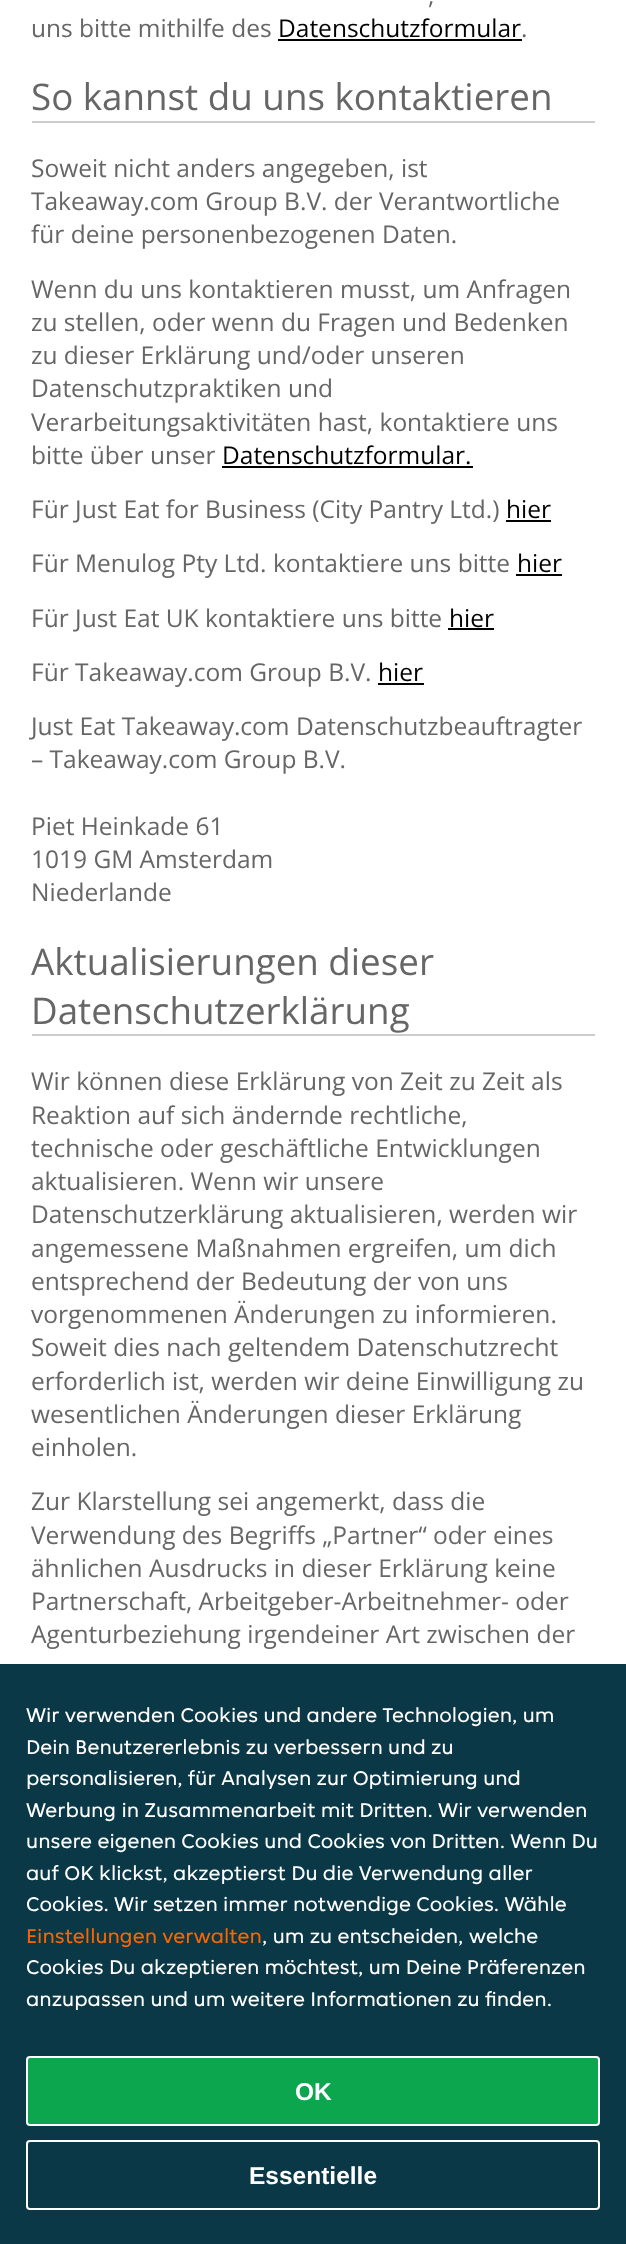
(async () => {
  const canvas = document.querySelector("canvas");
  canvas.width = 626;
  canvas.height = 2244;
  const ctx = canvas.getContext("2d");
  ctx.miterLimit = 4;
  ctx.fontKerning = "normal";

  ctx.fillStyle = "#ffffff";
  ctx.fillRect(0, 0, 626, 2244);
  for (const [x, y, w, h, color] of [
    [278, 39, 244, 2, "#000000"],
    [32, 121, 563, 2, "#cccccc"],
    [222, 466, 251, 2, "#000000"],
    [506, 520, 45, 2, "#000000"],
    [516, 574, 46, 2, "#000000"],
    [448, 628, 46, 2, "#000000"],
    [378, 683, 46, 2, "#000000"],
    [32, 1034, 563, 2, "#cccccc"],
    [0, 1664, 626, 580, "#0a3847"],
  ]) {
    ctx.fillStyle = color;
    ctx.fillRect(x, y, w, h);
  }
  ctx.fillStyle = "#0ca64f";
  ctx.beginPath();
  ctx.roundRect(27, 2057, 572, 68, 3);
  ctx.fill();
  ctx.strokeStyle = "#ffffff";
  ctx.lineWidth = 2;
  ctx.stroke();
  ctx.beginPath();
  ctx.roundRect(27, 2141, 572, 68, 3);
  ctx.stroke();
  ctx.font = "24.5px Open Sans";
  ctx.fillStyle = "#666666";
  ctx.fillText(",", 428, 4);
  ctx.fillText("uns bitte mithilfe des", 31, 37);
  ctx.fillStyle = "#000000";
  ctx.fillText("Datenschutzformular", 278, 37);
  ctx.fillStyle = "#666666";
  ctx.fillText(".", 521, 37);
  ctx.font = "36.75px Open Sans";
  ctx.fillText("So kannst du uns kontaktieren", 31, 110);
  ctx.font = "24.5px Open Sans";
  for (const [text, x, y] of [
    ["Soweit nicht anders angegeben, ist", 31, 177],
    ["Takeaway.com Group B.V. der Verantwortliche", 31, 210],
    ["für deine personenbezogenen Daten.", 31, 243],
    ["Wenn du uns kontaktieren musst, um Anfragen", 31, 298],
    ["zu stellen, oder wenn du Fragen und Bedenken", 31, 331],
    ["zu dieser Erklärung und/oder unseren", 31, 364],
    ["Datenschutzpraktiken und", 31, 397],
    ["Verarbeitungsaktivitäten hast, kontaktiere uns", 31, 431],
    ["bitte über unser", 31, 464],
  ]) {
    ctx.fillText(text, x, y);
  }
  ctx.fillStyle = "#000000";
  ctx.fillText("Datenschutzformular.", 222, 464);
  ctx.fillStyle = "#666666";
  ctx.fillText("Für Just Eat for Business (City Pantry Ltd.)", 31, 518);
  ctx.fillStyle = "#000000";
  ctx.fillText("hier", 506, 518);
  ctx.fillStyle = "#666666";
  ctx.fillText("Für Menulog Pty Ltd. kontaktiere uns bitte", 31, 572);
  ctx.fillStyle = "#000000";
  ctx.fillText("hier", 517, 572);
  ctx.fillStyle = "#666666";
  ctx.fillText("Für Just Eat UK kontaktiere uns bitte", 31, 627);
  ctx.fillStyle = "#000000";
  ctx.fillText("hier", 449, 627);
  ctx.fillStyle = "#666666";
  ctx.fillText("Für Takeaway.com Group B.V.", 31, 681);
  ctx.fillStyle = "#000000";
  ctx.fillText("hier", 378, 681);
  ctx.fillStyle = "#666666";
  for (const [text, x, y] of [
    ["Just Eat Takeaway.com Datenschutzbeauftragter", 31, 735],
    ["– Takeaway.com Group B.V.", 31, 768],
    ["Piet Heinkade 61", 31, 835],
    ["1019 GM Amsterdam", 31, 868],
    ["Niederlande", 31, 901],
  ]) {
    ctx.fillText(text, x, y);
  }
  ctx.font = "36.75px Open Sans";
  ctx.fillText("Aktualisierungen dieser", 31, 975);
  ctx.fillText("Datenschutzerklärung", 31, 1024);
  ctx.font = "24.5px Open Sans";
  for (const [text, x, y] of [
    ["Wir können diese Erklärung von Zeit zu Zeit als", 31, 1090],
    ["Reaktion auf sich ändernde rechtliche,", 31, 1124],
    ["technische oder geschäftliche Entwicklungen", 31, 1157],
    ["aktualisieren. Wenn wir unsere", 31, 1190],
    ["Datenschutzerklärung aktualisieren, werden wir", 31, 1223],
    ["angemessene Maßnahmen ergreifen, um dich", 31, 1257],
    ["entsprechend der Bedeutung der von uns", 31, 1290],
    ["vorgenommenen Änderungen zu informieren.", 31, 1323],
    ["Soweit dies nach geltendem Datenschutzrecht", 31, 1356],
    ["erforderlich ist, werden wir deine Einwilligung zu", 31, 1390],
    ["wesentlichen Änderungen dieser Erklärung", 31, 1423],
    ["einholen.", 31, 1456],
    ["Zur Klarstellung sei angemerkt, dass die", 31, 1510],
    ["Verwendung des Begriffs „Partner“ oder eines", 31, 1544],
    ["ähnlichen Ausdrucks in dieser Erklärung keine", 31, 1577],
    ["Partnerschaft, Arbeitgeber-Arbeitnehmer- oder", 31, 1610],
    ["Agenturbeziehung irgendeiner Art zwischen der", 31, 1643],
  ]) {
    ctx.fillText(text, x, y);
  }
  ctx.font = "21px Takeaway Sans";
  ctx.fillStyle = "#ffffff";
  for (const [text, x, y] of [
    ["Wir verwenden Cookies und andere Technologien, um", 26, 1722],
    ["Dein Benutzererlebnis zu verbessern und zu", 26, 1754],
    ["personalisieren, für Analysen zur Optimierung und", 26, 1785],
    ["Werbung in Zusammenarbeit mit Dritten. Wir verwenden", 26, 1817],
    ["unsere eigenen Cookies und Cookies von Dritten. Wenn Du", 26, 1848],
    ["auf OK klickst, akzeptierst Du die Verwendung aller", 26, 1880],
    ["Cookies. Wir setzen immer notwendige Cookies. Wähle", 26, 1911],
  ]) {
    ctx.fillText(text, x, y);
  }
  ctx.fillStyle = "#f86600";
  ctx.fillText("Einstellungen verwalten", 26, 1943);
  ctx.fillStyle = "#ffffff";
  for (const [text, x, y] of [
    [", um zu entscheiden, welche", 262, 1943],
    ["Cookies Du akzeptieren möchtest, um Deine Präferenzen", 26, 1974],
    ["anzupassen und um weitere Informationen zu finden.", 26, 2006],
  ]) {
    ctx.fillText(text, x, y);
  }
  ctx.font = "bold 24.5px Liberation Sans";
  ctx.fillText("OK", 295, 2100);
  ctx.fillText("Essentielle", 249, 2184);
})();
